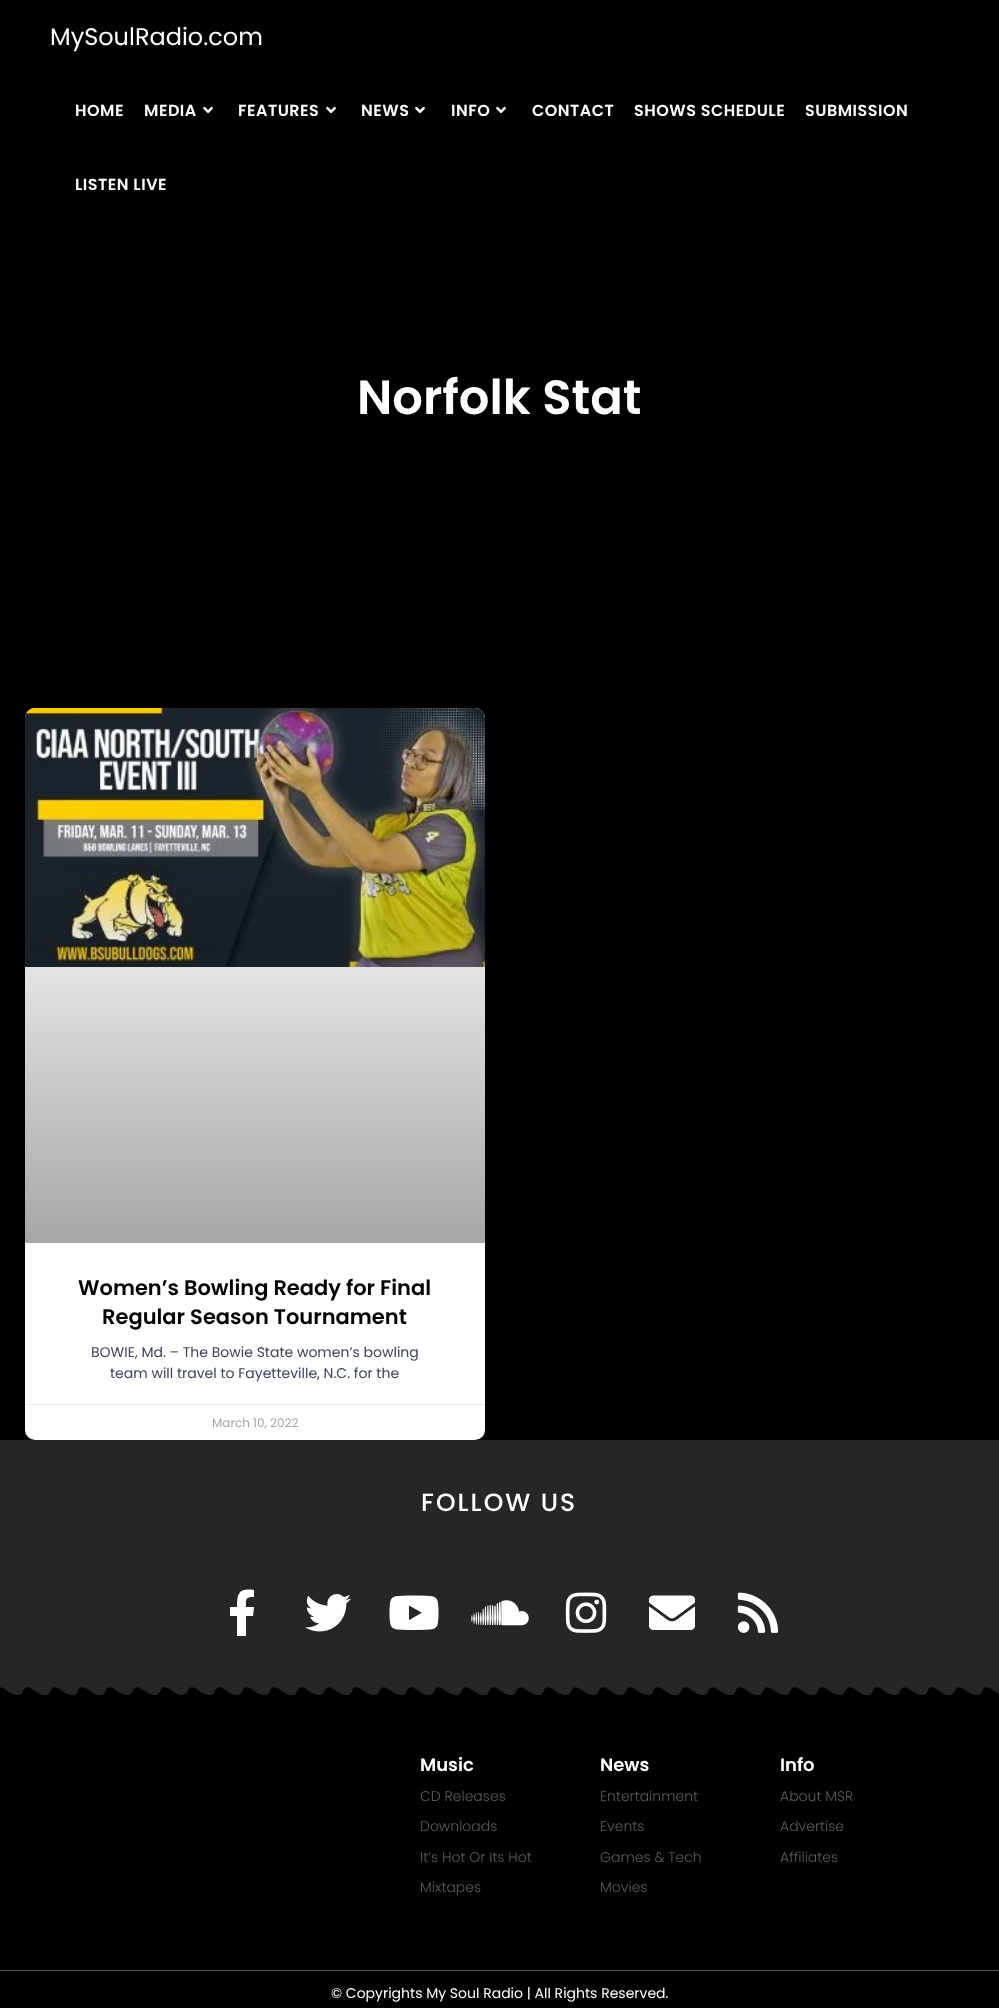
(async () => {
  const canvas = document.querySelector("canvas");
  canvas.width = 999;
  canvas.height = 2008;
  const ctx = canvas.getContext("2d");
  ctx.miterLimit = 4;
  ctx.fontKerning = "normal";
  async function loadImage(src) {
    const img = new Image();
    img.src = src;
    await img.decode();
    return img;
  }
  let gradient, path;

  ctx.fillStyle = "#000000";
  ctx.fillRect(0, 0, 999, 2008);
  ctx.drawImage(await loadImage("img/1.png"), 203, 106, 10, 8);
  ctx.drawImage(await loadImage("img/1.png"), 326, 106, 10, 8);
  ctx.drawImage(await loadImage("img/1.png"), 415, 106, 10, 8);
  ctx.drawImage(await loadImage("img/1.png"), 496, 106, 10, 8);
  ctx.fillStyle = "#ffffff";
  ctx.beginPath();
  ctx.roundRect(25, 708, 460, 732, 10);
  ctx.fill();
  ctx.drawImage(await loadImage("img/2.png"), 25, 708, 460, 259);
  gradient = ctx.createLinearGradient(255, 1243, 255, 708);
  gradient.addColorStop(0, "rgba(0, 0, 0, 0.35)");
  gradient.addColorStop(0.75, "rgba(0, 0, 0, 0)");
  ctx.fillStyle = gradient;
  ctx.fillRect(25, 866, 460, 377);
  ctx.fillStyle = "#ececee";
  ctx.fillRect(25, 1404, 460, 1);
  ctx.fillStyle = "#262626";
  ctx.fillRect(0, 1440, 999, 246);
  ctx.fillStyle = "#ffffff";
  path = new Path2D("M253 1616H246V1636H237V1616H230V1607H237C237 1593 239 1588 254 1590V1597C245 1597 246 1599 246 1607H254Z");
  ctx.fill(path);
  ctx.drawImage(await loadImage("img/3.png"), 305, 1594, 46, 38);
  ctx.drawImage(await loadImage("img/4.png"), 389, 1595, 50, 35);
  ctx.drawImage(await loadImage("img/5.png"), 471, 1600, 58, 26);
  ctx.drawImage(await loadImage("img/6.png"), 565, 1592, 42, 41);
  ctx.drawImage(await loadImage("img/7.png"), 649, 1595, 46, 35);
  ctx.drawImage(await loadImage("img/8.png"), 737, 1592, 42, 41);
  ctx.drawImage(await loadImage("img/9.png"), 0, 1686, 999, 9);
  ctx.fillStyle = "#575757";
  ctx.fillRect(0, 1970, 999, 1);
  ctx.font = "24px Poppins";
  ctx.fillStyle = "#ffffff";
  ctx.fillText("MySoulRadio.com", 50, 45);
  ctx.letterSpacing = "0.5px";
  ctx.font = "600 16px Poppins";
  for (const [text, x, y] of [
    ["HOME", 75, 116],
    ["MEDIA", 144, 116],
    ["FEATURES", 238, 116],
    ["NEWS", 361, 116],
    ["INFO", 451, 116],
    ["CONTACT", 532, 116],
    ["SHOWS SCHEDULE", 634, 116],
    ["SUBMISSION", 805, 116],
    ["LISTEN LIVE", 75, 190],
  ]) {
    ctx.fillText(text, x, y);
  }
  ctx.letterSpacing = "0px";
  ctx.font = "600 48px Poppins";
  ctx.fillText("Norfolk Stat", 357, 414);
  ctx.font = "600 21px Poppins";
  ctx.fillStyle = "#000000";
  ctx.fillText("Women’s Bowling Ready for Final", 78, 1295);
  ctx.fillText("Regular Season Tournament", 102, 1324);
  ctx.font = "14px Poppins";
  ctx.fillStyle = "#3d4459";
  ctx.fillText("BOWIE, Md. – The Bowie State women’s bowling", 91, 1357);
  ctx.fillText("team will travel to Fayetteville, N.C. for the", 110, 1378);
  ctx.font = "12px Poppins";
  ctx.fillStyle = "#9ea2ac";
  ctx.fillText("March 10, 2022", 212, 1427);
  ctx.letterSpacing = "2px";
  ctx.font = "500 25px Poppins";
  ctx.fillStyle = "#ffffff";
  ctx.fillText("FOLLOW US", 421, 1511);
  ctx.letterSpacing = "0px";
  ctx.font = "600 18px Poppins";
  ctx.fillText("Music", 420, 1771);
  ctx.font = "300 14px Poppins";
  ctx.fillStyle = "#5c5c5c";
  for (const [text, x, y] of [
    ["CD Releases", 420, 1801],
    ["Downloads", 420, 1831],
    ["It’s Hot Or Its Hot", 420, 1862],
    ["Mixtapes", 420, 1892],
  ]) {
    ctx.fillText(text, x, y);
  }
  ctx.font = "600 18px Poppins";
  ctx.fillStyle = "#ffffff";
  ctx.fillText("News", 600, 1771);
  ctx.font = "300 14px Poppins";
  ctx.fillStyle = "#5c5c5c";
  for (const [text, x, y] of [
    ["Entertainment", 600, 1801],
    ["Events", 600, 1831],
    ["Games & Tech", 600, 1862],
    ["Movies", 600, 1892],
  ]) {
    ctx.fillText(text, x, y);
  }
  ctx.font = "600 18px Poppins";
  ctx.fillStyle = "#ffffff";
  ctx.fillText("Info", 780, 1771);
  ctx.font = "300 14px Poppins";
  ctx.fillStyle = "#5c5c5c";
  for (const [text, x, y] of [
    ["About MSR", 780, 1801],
    ["Advertise", 780, 1831],
    ["Affiliates", 780, 1862],
  ]) {
    ctx.fillText(text, x, y);
  }
  ctx.font = "14px Poppins";
  ctx.fillStyle = "#ffffff";
  ctx.fillText("© Copyrights My Soul Radio | All Rights Reserved.", 331, 1998);
})();
